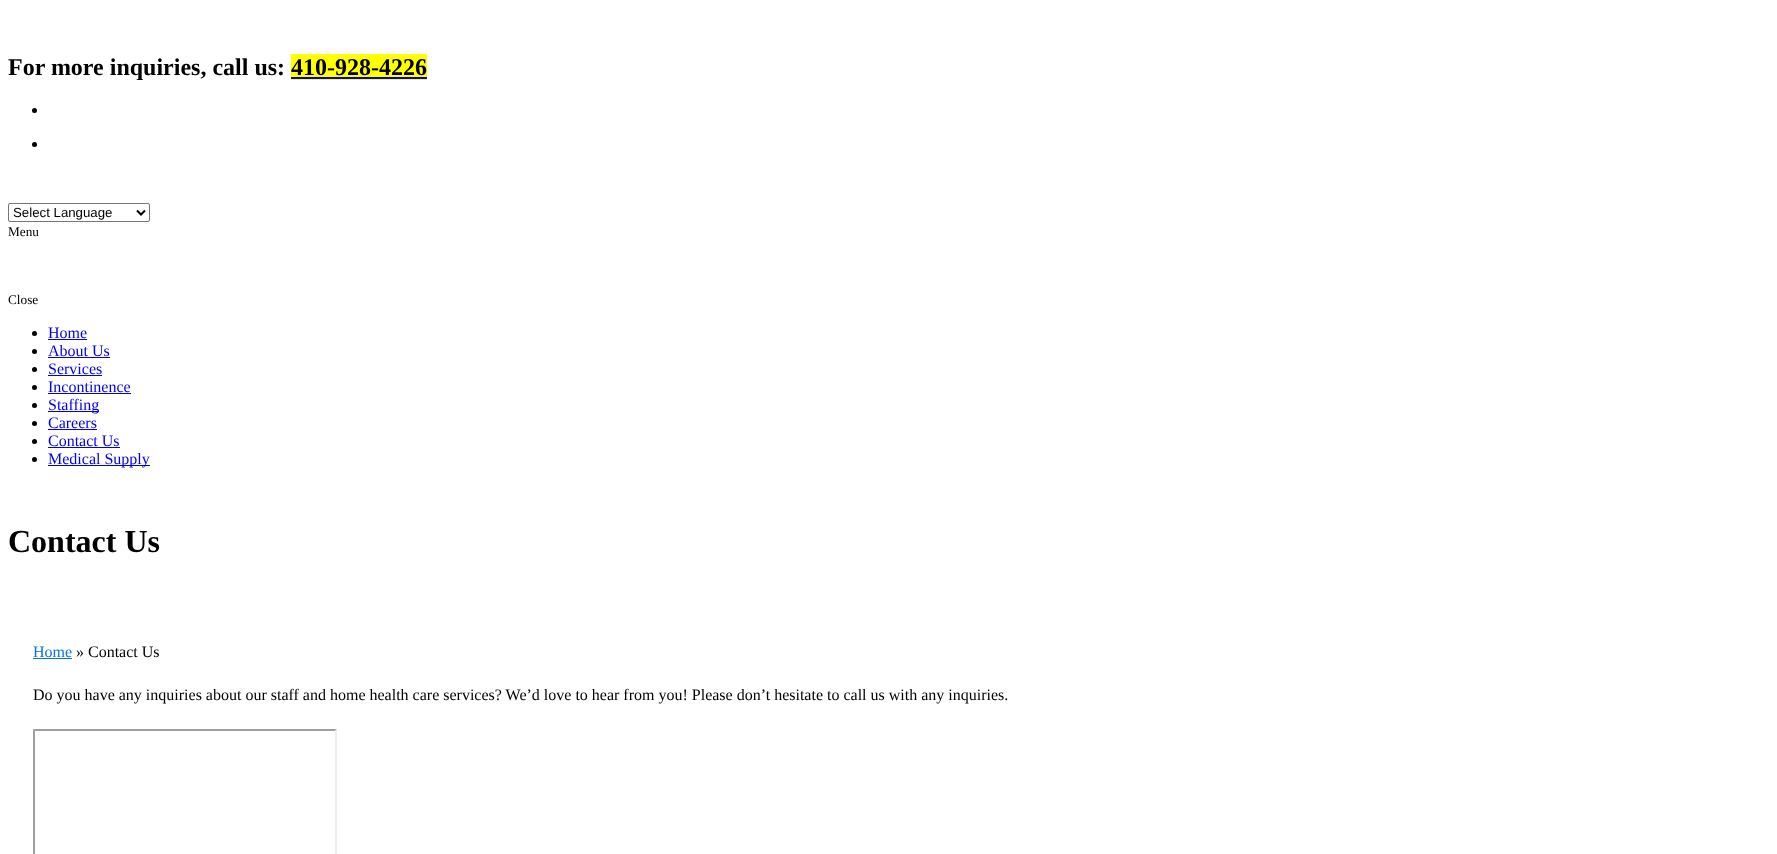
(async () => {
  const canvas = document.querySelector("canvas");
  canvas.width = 1777;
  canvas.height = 854;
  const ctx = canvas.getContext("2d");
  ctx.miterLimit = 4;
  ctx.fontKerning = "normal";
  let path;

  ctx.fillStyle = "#ffffff";
  ctx.fillRect(0, 0, 1777, 854);
  ctx.fillStyle = "#ffff00";
  ctx.fillRect(291, 54, 136, 26);
  ctx.fillStyle = "#0000ee";
  ctx.fillRect(291, 77, 136, 2);
  ctx.fillStyle = "#000000";
  ctx.beginPath();
  ctx.arc(34.5, 110.5, 2.5, 0, Math.PI * 2);
  ctx.fill();
  ctx.beginPath();
  ctx.arc(34.5, 144.5, 2.5, 0, Math.PI * 2);
  ctx.fill();
  ctx.beginPath();
  ctx.roundRect(8.5, 203.5, 141, 18, 1.5);
  ctx.strokeStyle = "#767676";
  ctx.stroke();
  path = new Path2D("M137 210.5L141 214.5L145 210.5");
  ctx.strokeStyle = "#000000";
  ctx.lineWidth = 2;
  ctx.stroke(path);
  ctx.beginPath();
  ctx.arc(34.5, 333.5, 2.5, 0, Math.PI * 2);
  ctx.fill();
  ctx.fillStyle = "#0000ee";
  ctx.fillRect(48, 339, 39, 1);
  ctx.fillStyle = "#000000";
  ctx.beginPath();
  ctx.arc(34.5, 351.5, 2.5, 0, Math.PI * 2);
  ctx.fill();
  ctx.fillStyle = "#0000ee";
  ctx.fillRect(48, 357, 62, 1);
  ctx.fillStyle = "#000000";
  ctx.beginPath();
  ctx.arc(34.5, 369.5, 2.5, 0, Math.PI * 2);
  ctx.fill();
  ctx.fillStyle = "#0000ee";
  ctx.fillRect(48, 375, 54, 1);
  ctx.fillStyle = "#000000";
  ctx.beginPath();
  ctx.arc(34.5, 387.5, 2.5, 0, Math.PI * 2);
  ctx.fill();
  ctx.fillStyle = "#0000ee";
  ctx.fillRect(48, 393, 83, 1);
  ctx.fillStyle = "#000000";
  ctx.beginPath();
  ctx.arc(34.5, 405.5, 2.5, 0, Math.PI * 2);
  ctx.fill();
  ctx.fillStyle = "#0000ee";
  ctx.fillRect(48, 411, 51, 1);
  ctx.fillStyle = "#000000";
  ctx.beginPath();
  ctx.arc(34.5, 423.5, 2.5, 0, Math.PI * 2);
  ctx.fill();
  ctx.fillStyle = "#0000ee";
  ctx.fillRect(48, 429, 49, 1);
  ctx.fillStyle = "#000000";
  ctx.beginPath();
  ctx.arc(34.5, 441.5, 2.5, 0, Math.PI * 2);
  ctx.fill();
  ctx.fillStyle = "#0000ee";
  ctx.fillRect(48, 447, 72, 1);
  ctx.fillStyle = "#000000";
  ctx.beginPath();
  ctx.arc(34.5, 459.5, 2.5, 0, Math.PI * 2);
  ctx.fill();
  ctx.fillStyle = "#0000ee";
  ctx.fillRect(48, 465, 102, 1);
  ctx.fillStyle = "#0a73d9";
  ctx.fillRect(33, 658, 39, 1);
  ctx.fillStyle = "#9f9f9f";
  path = new Path2D("M33 729H337L335 731H35Z");
  ctx.fill(path);
  path = new Path2D("M33 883V729L35 731V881Z");
  ctx.fill(path);
  ctx.fillStyle = "#eeeeee";
  path = new Path2D("M337 729V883L335 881V731Z");
  ctx.fill(path);
  ctx.font = "bold 24px Liberation Serif";
  ctx.fillStyle = "#000000";
  ctx.fillText("For more inquiries, call us:", 8, 75);
  ctx.fillText("410-928-4226", 291, 75);
  ctx.font = "13.25px Liberation Sans";
  ctx.fillText("Select Language", 13, 217);
  ctx.font = "13.25px Liberation Serif";
  ctx.fillText("Menu", 8, 236);
  ctx.fillText("Close", 8, 304);
  ctx.font = "16px Liberation Serif";
  ctx.fillStyle = "#0000ee";
  for (const [text, x, y] of [
    ["Home", 48, 338],
    ["About Us", 48, 356],
    ["Services", 48, 374],
    ["Incontinence", 48, 392],
    ["Staffing", 48, 410],
    ["Careers", 48, 428],
    ["Contact Us", 48, 446],
    ["Medical Supply", 48, 464],
  ]) {
    ctx.fillText(text, x, y);
  }
  ctx.font = "bold 32px Liberation Serif";
  ctx.fillStyle = "#000000";
  ctx.fillText("Contact Us", 8, 552);
  ctx.font = "16px Liberation Serif";
  ctx.fillStyle = "#0a73d9";
  ctx.fillText("Home", 33, 657);
  ctx.fillStyle = "#000000";
  ctx.fillText("» Contact Us", 76, 657);
  ctx.fillText("Do you have any inquiries about our staff and home health care services? We’d love to hear from you! Please don’t hesitate to call us with any inquiries.", 33, 700);
})();
